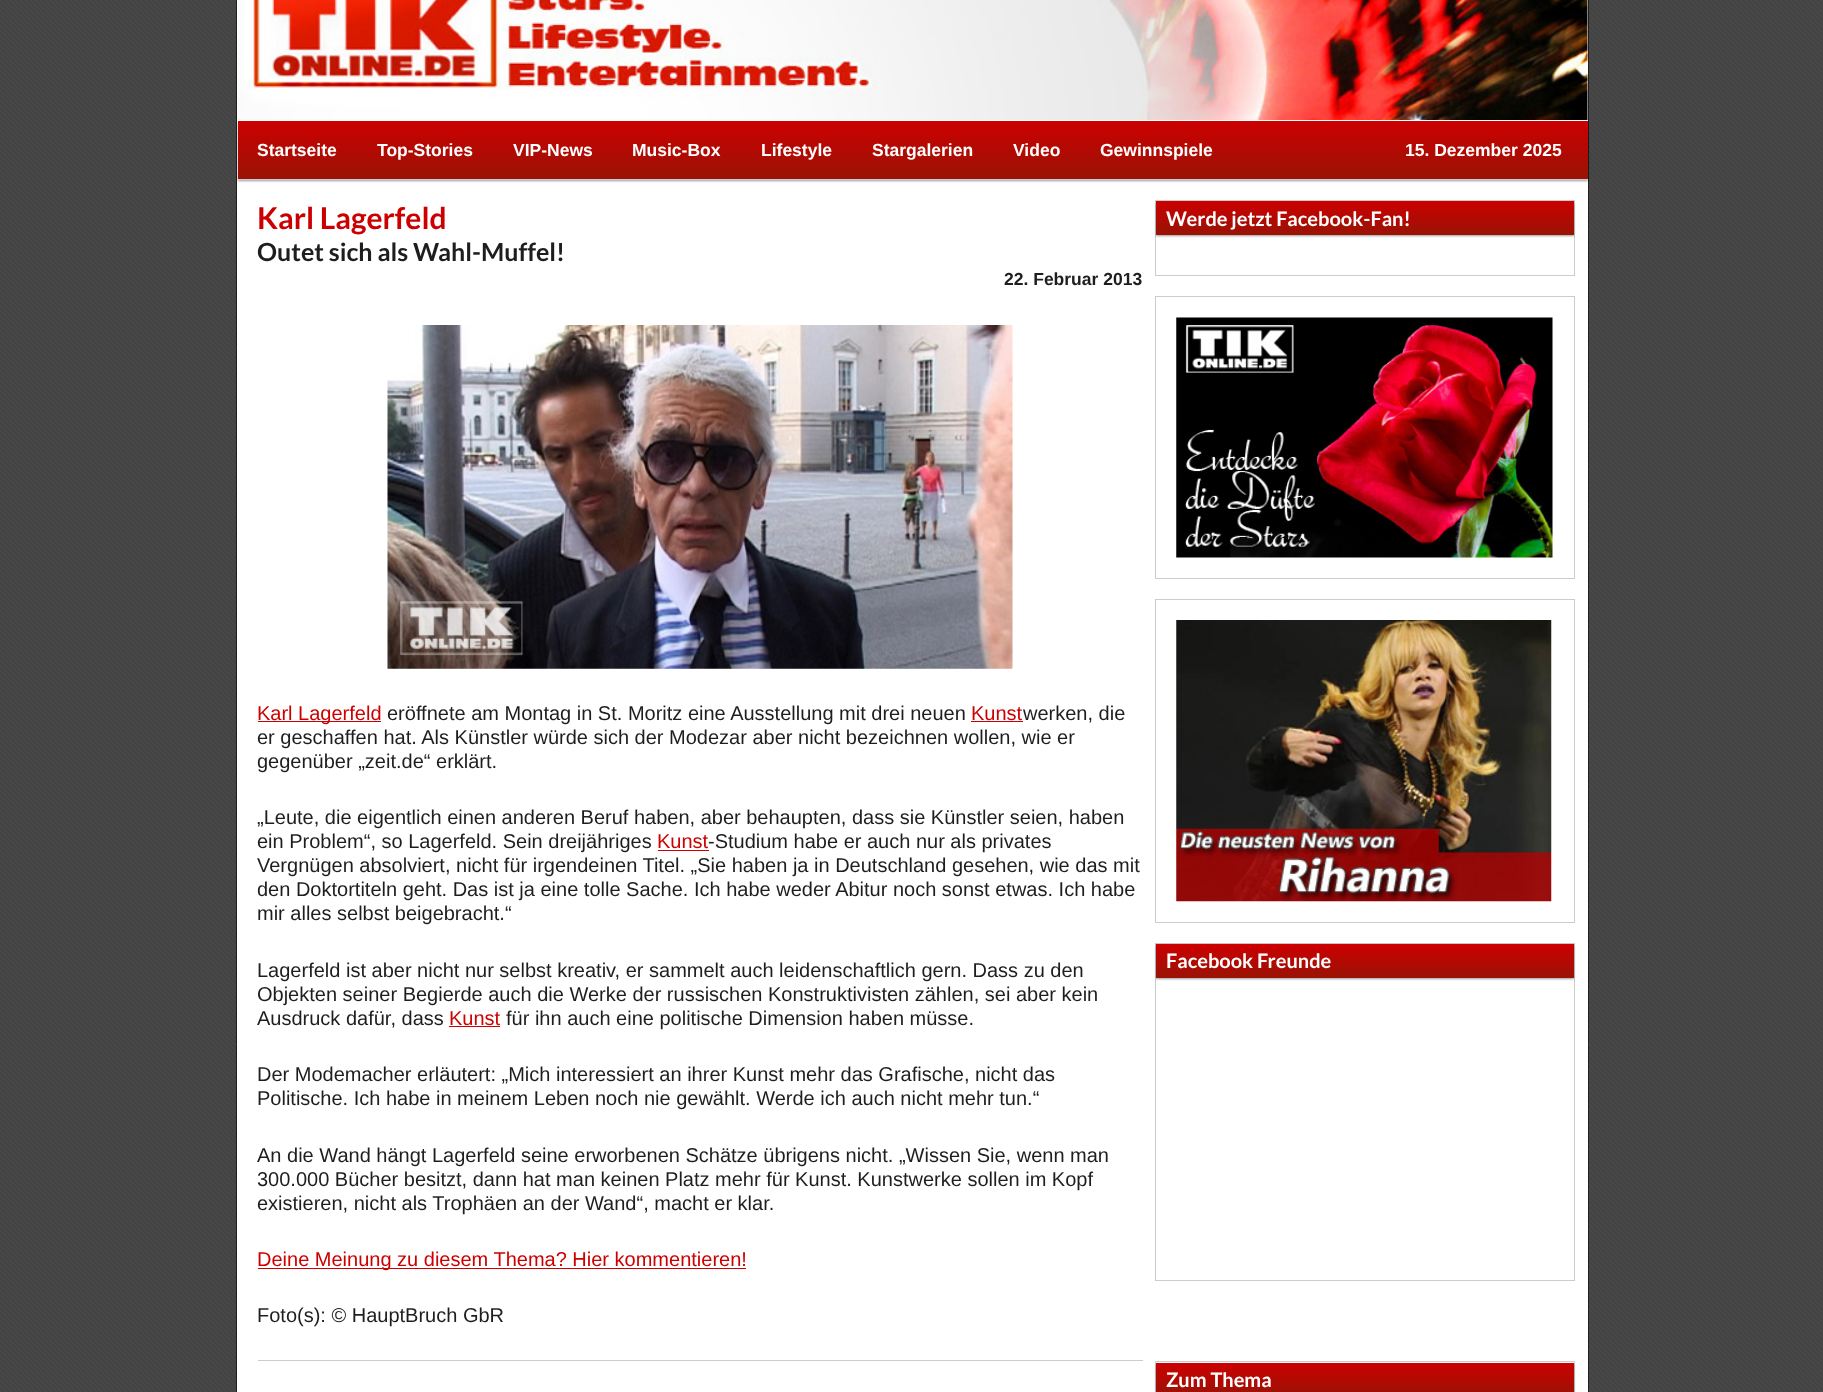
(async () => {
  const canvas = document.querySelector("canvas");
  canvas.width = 1823;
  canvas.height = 1392;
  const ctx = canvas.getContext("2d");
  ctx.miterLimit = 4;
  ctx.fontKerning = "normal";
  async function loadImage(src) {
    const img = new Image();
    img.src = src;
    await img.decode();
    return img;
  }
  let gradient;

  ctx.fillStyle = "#ffffff";
  ctx.fillRect(0, 0, 1823, 1392);
  ctx.drawImage(await loadImage("img/1.png"), 0, 0, 1823, 1392);
  ctx.beginPath();
  ctx.rect(236.5, -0.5, 1352, 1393);
  ctx.fill();
  ctx.strokeStyle = "#1e1e1e";
  ctx.stroke();
  ctx.drawImage(await loadImage("img/2.png"), 238, 0, 1350, 120);
  ctx.fillStyle = "rgba(0, 0, 0, 0.4)";
  ctx.filter = "blur(1px)";
  ctx.beginPath();
  ctx.rect(238, 123, 1350, 58);
  ctx.fill();
  ctx.filter = "none";
  gradient = ctx.createLinearGradient(913, 121, 913, 179);
  gradient.addColorStop(0, "#cc0000");
  gradient.addColorStop(1, "#991305");
  ctx.fillStyle = gradient;
  ctx.fillRect(238, 121, 1350, 58);
  ctx.fillStyle = "#cccccc";
  ctx.fillRect(238, 179, 1350, 1);
  ctx.drawImage(await loadImage("img/3.png"), 387, 325, 626, 344);
  for (const [x, y, w, h, color] of [
    [258, 721, 123, 1, "#cc0000"],
    [971, 721, 52, 1, "#cc0000"],
    [658, 850, 51, 1, "#cc0000"],
    [449, 1026, 51, 1, "#cc0000"],
    [258, 1268, 488, 1, "#cc0000"],
    [258, 1360, 885, 1, "#cccccc"],
  ]) {
    ctx.fillStyle = color;
    ctx.fillRect(x, y, w, h);
  }
  ctx.strokeStyle = "#cccccc";
  ctx.strokeRect(1155.5, 200.5, 419, 75);
  ctx.fillStyle = "rgba(0, 0, 0, 0.4)";
  ctx.filter = "blur(1px)";
  ctx.beginPath();
  ctx.rect(1156, 203, 418, 33);
  ctx.fill();
  ctx.filter = "none";
  gradient = ctx.createLinearGradient(1365, 201, 1365, 235);
  gradient.addColorStop(0, "#cc0000");
  gradient.addColorStop(1, "#991305");
  ctx.fillStyle = gradient;
  ctx.fillRect(1156, 201, 418, 34);
  ctx.strokeRect(1155.5, 296.5, 419, 282);
  ctx.drawImage(await loadImage("img/4.png"), 1176, 317, 377, 241);
  ctx.strokeRect(1155.5, 599.5, 419, 323);
  ctx.drawImage(await loadImage("img/5.png"), 1176, 620, 376, 282);
  ctx.strokeRect(1155.5, 943.5, 419, 337);
  ctx.fillStyle = "rgba(0, 0, 0, 0.4)";
  ctx.filter = "blur(1px)";
  ctx.beginPath();
  ctx.rect(1156, 945, 418, 34);
  ctx.fill();
  ctx.filter = "none";
  gradient = ctx.createLinearGradient(1365, 944, 1365, 978);
  gradient.addColorStop(0, "#cc0000");
  gradient.addColorStop(1, "#991305");
  ctx.fillStyle = gradient;
  ctx.fillRect(1156, 944, 418, 34);
  ctx.strokeRect(1155.5, 1361.5, 419, 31);
  ctx.fillStyle = "rgba(0, 0, 0, 0.4)";
  ctx.filter = "blur(1px)";
  ctx.beginPath();
  ctx.rect(1156, 1364, 418, 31);
  ctx.fill();
  ctx.filter = "none";
  gradient = ctx.createLinearGradient(1365, 1363, 1365, 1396);
  gradient.addColorStop(0, "#cc0000");
  gradient.addColorStop(1, "#991305");
  ctx.fillStyle = gradient;
  ctx.fillRect(1156, 1363, 418, 29);
  ctx.font = "bold 17.5px Liberation Sans";
  ctx.fillStyle = "#ffffff";
  for (const [text, x, y] of [
    ["Startseite", 257, 156],
    ["Top-Stories", 377, 156],
    ["VIP-News", 513, 156],
    ["Music-Box", 632, 156],
    ["Lifestyle", 761, 156],
    ["Stargalerien", 872, 156],
    ["Video", 1013, 156],
    ["Gewinnspiele", 1100, 156],
    ["15. Dezember 2025", 1405, 156],
  ]) {
    ctx.fillText(text, x, y);
  }
  ctx.font = "bold 30px Lato";
  ctx.fillStyle = "#cc0000";
  ctx.fillText("Karl Lagerfeld", 257, 229);
  ctx.font = "bold 25px Lato";
  ctx.fillStyle = "#1e1e1e";
  ctx.fillText("Outet sich als Wahl-Muffel!", 257, 261);
  ctx.font = "bold 17.5px Liberation Sans";
  ctx.fillText("22. Februar 2013", 1004, 285);
  ctx.font = "20px Liberation Sans";
  ctx.fillStyle = "#cc0000";
  ctx.fillText("Karl Lagerfeld", 257, 720);
  ctx.fillStyle = "#1e1e1e";
  ctx.fillText("eröffnete am Montag in St. Moritz eine Ausstellung mit drei neuen", 387, 720);
  ctx.fillStyle = "#cc0000";
  ctx.fillText("Kunst", 971, 720);
  ctx.fillStyle = "#1e1e1e";
  for (const [text, x, y] of [
    ["werken, die", 1023, 720],
    ["er geschaffen hat. Als Künstler würde sich der Modezar aber nicht bezeichnen wollen, wie er", 257, 744],
    ["gegenüber „zeit.de“ erklärt.", 257, 768],
    ["„Leute, die eigentlich einen anderen Beruf haben, aber behaupten, dass sie Künstler seien, haben", 257, 824],
    ["ein Problem“, so Lagerfeld. Sein dreijähriges", 257, 848],
  ]) {
    ctx.fillText(text, x, y);
  }
  ctx.fillStyle = "#cc0000";
  ctx.fillText("Kunst", 657, 848);
  ctx.fillStyle = "#1e1e1e";
  for (const [text, x, y] of [
    ["-Studium habe er auch nur als privates", 708, 848],
    ["Vergnügen absolviert, nicht für irgendeinen Titel. „Sie haben ja in Deutschland gesehen, wie das mit", 257, 872],
    ["den Doktortiteln geht. Das ist ja eine tolle Sache. Ich habe weder Abitur noch sonst etwas. Ich habe", 257, 896],
    ["mir alles selbst beigebracht.“", 257, 920],
    ["Lagerfeld ist aber nicht nur selbst kreativ, er sammelt auch leidenschaftlich gern. Dass zu den", 257, 977],
    ["Objekten seiner Begierde auch die Werke der russischen Konstruktivisten zählen, sei aber kein", 257, 1001],
    ["Ausdruck dafür, dass", 257, 1025],
  ]) {
    ctx.fillText(text, x, y);
  }
  ctx.fillStyle = "#cc0000";
  ctx.fillText("Kunst", 449, 1025);
  ctx.fillStyle = "#1e1e1e";
  for (const [text, x, y] of [
    ["für ihn auch eine politische Dimension haben müsse.", 506, 1025],
    ["Der Modemacher erläutert: „Mich interessiert an ihrer Kunst mehr das Grafische, nicht das", 257, 1081],
    ["Politische. Ich habe in meinem Leben noch nie gewählt. Werde ich auch nicht mehr tun.“", 257, 1105],
    ["An die Wand hängt Lagerfeld seine erworbenen Schätze übrigens nicht. „Wissen Sie, wenn man", 257, 1162],
    ["300.000 Bücher besitzt, dann hat man keinen Platz mehr für Kunst. Kunstwerke sollen im Kopf", 257, 1186],
    ["existieren, nicht als Trophäen an der Wand“, macht er klar.", 257, 1210],
  ]) {
    ctx.fillText(text, x, y);
  }
  ctx.fillStyle = "#cc0000";
  ctx.fillText("Deine Meinung zu diesem Thema? Hier kommentieren!", 257, 1266);
  ctx.fillStyle = "#1e1e1e";
  ctx.fillText("Foto(s): © HauptBruch GbR", 257, 1322);
  ctx.font = "bold 20px Lato";
  ctx.fillStyle = "#ffffff";
  for (const [text, x, y] of [
    ["Werde jetzt Facebook-Fan!", 1166, 226],
    ["Facebook Freunde", 1166, 968],
    ["Zum Thema", 1166, 1387],
  ]) {
    ctx.fillText(text, x, y);
  }
})();
